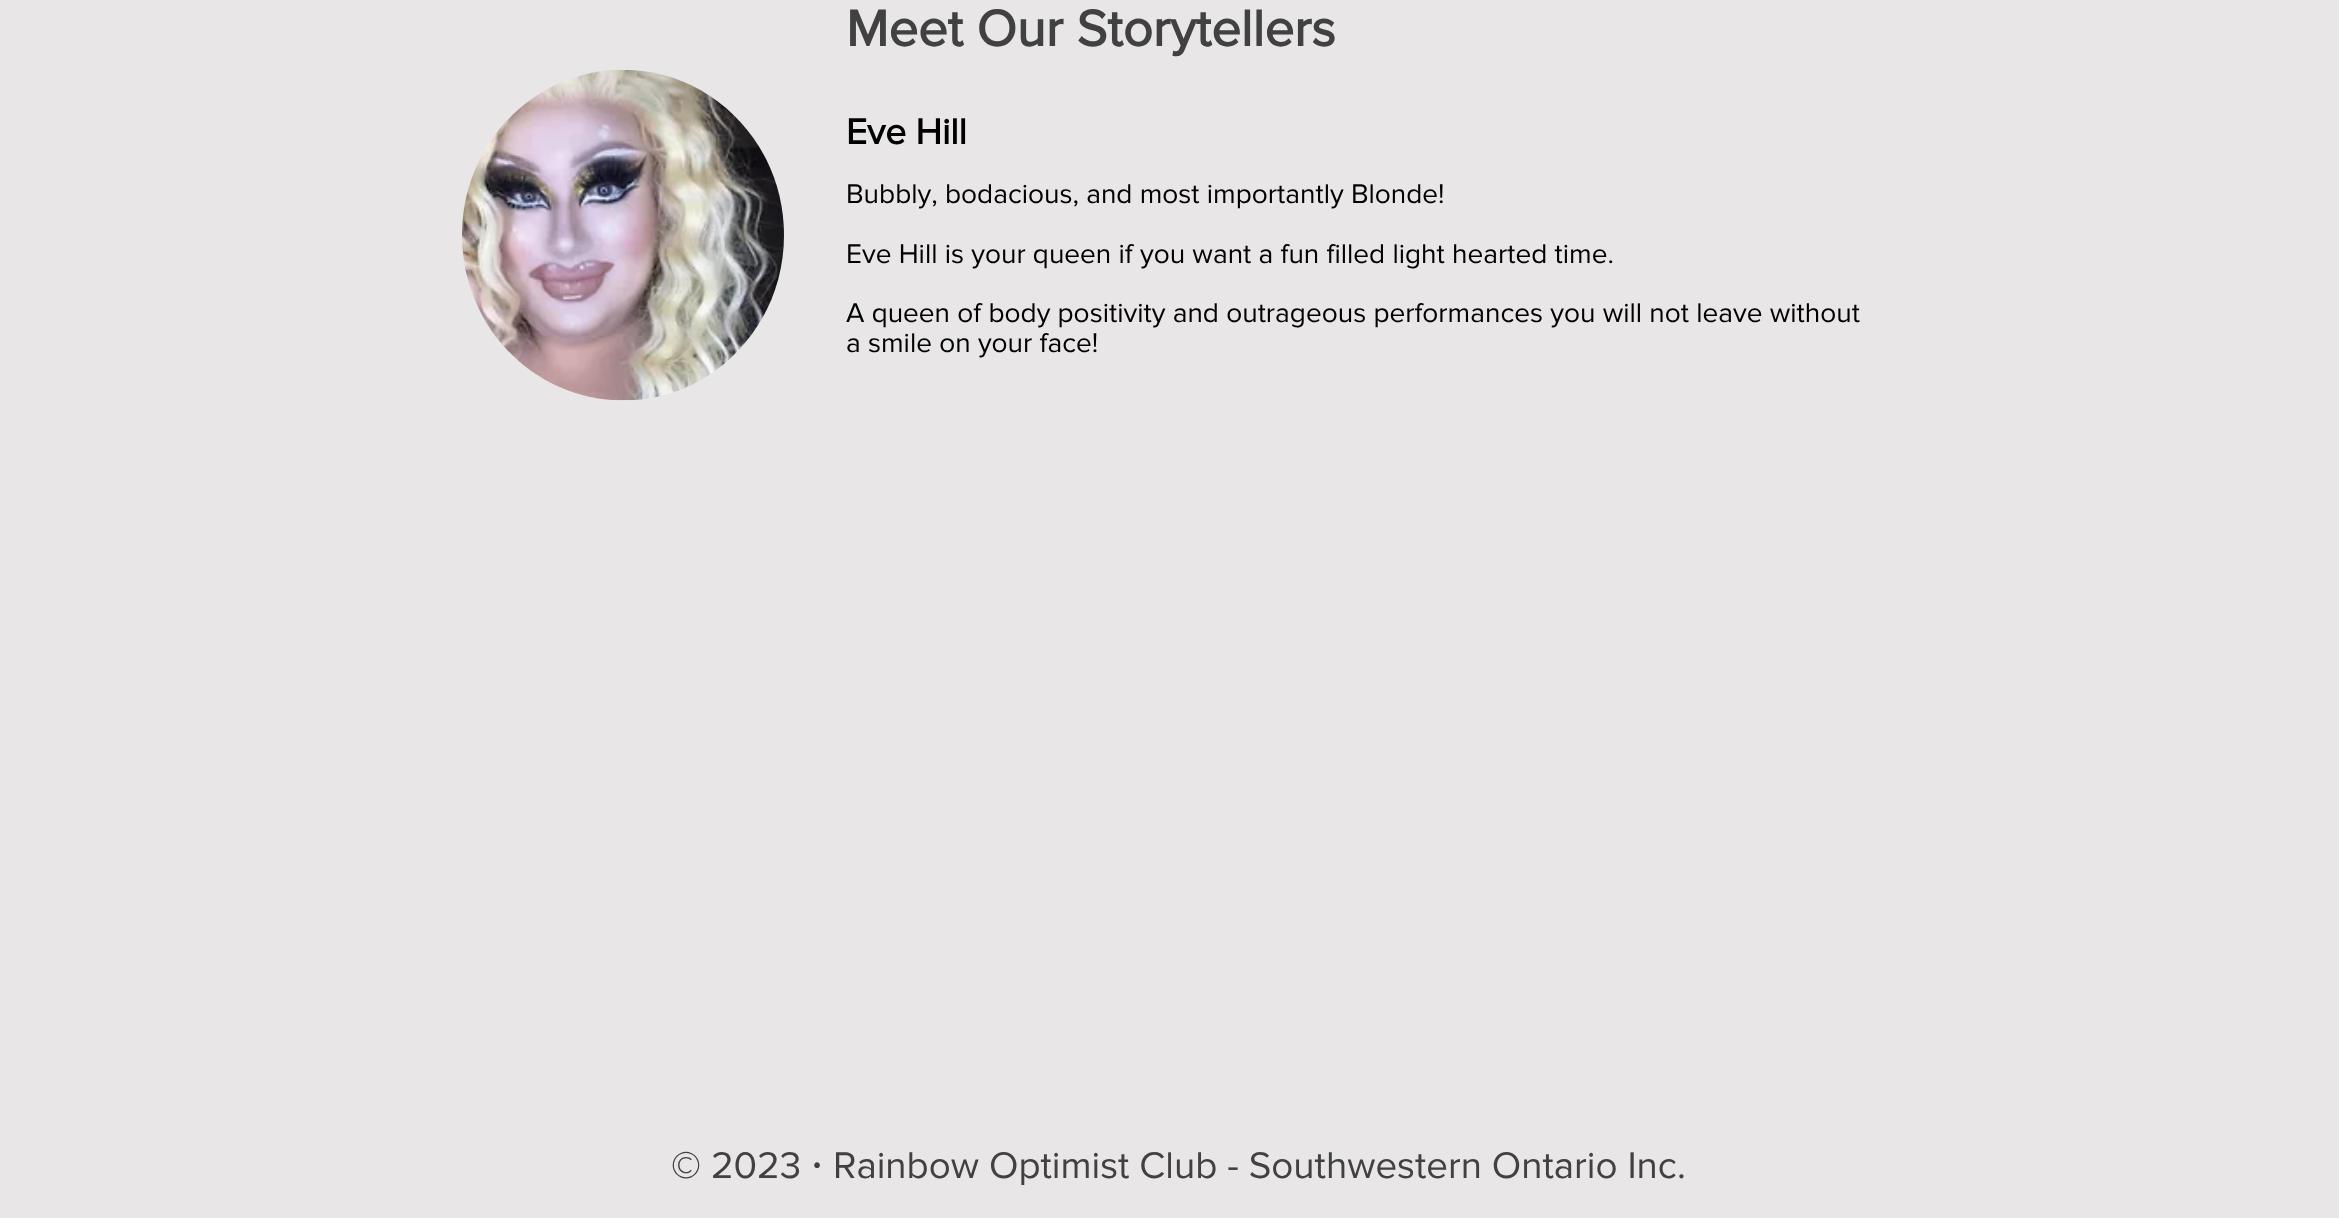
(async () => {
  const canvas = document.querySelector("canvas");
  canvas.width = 2339;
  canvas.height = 1218;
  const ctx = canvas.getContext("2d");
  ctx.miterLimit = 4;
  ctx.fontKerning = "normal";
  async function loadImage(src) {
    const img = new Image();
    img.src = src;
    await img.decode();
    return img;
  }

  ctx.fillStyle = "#e8e6e6";
  ctx.fillRect(0, 0, 2339, 1218);
  ctx.drawImage(await loadImage("img/1.png"), 462, 70, 322, 331);
  ctx.font = "bold 52.5px 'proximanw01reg'";
  ctx.fillStyle = "#414141";
  ctx.fillText("Meet Our Storytellers", 846, 46);
  ctx.font = "bold 37px 'proximanw01reg'";
  ctx.fillStyle = "#000000";
  ctx.fillText("Eve Hill", 846, 144);
  ctx.font = "28px 'proximanw01reg'";
  for (const [text, x, y] of [
    ["Bubbly, bodacious, and most importantly Blonde!", 846, 203],
    ["Eve Hill is your queen if you want a fun filled light hearted time.", 846, 263],
    ["A queen of body positivity and outrageous performances you will not leave without", 846, 322],
    ["a smile on your face!", 846, 352],
  ]) {
    ctx.fillText(text, x, y);
  }
  ctx.font = "38.5px 'proximanw01reg'";
  ctx.fillStyle = "#414141";
  ctx.fillText("© 2023", 671, 1178);
  ctx.font = "52.5px 'proximanw01reg'";
  ctx.fillText("·", 811, 1178);
  ctx.font = "38.5px 'proximanw01reg'";
  ctx.fillText("Rainbow Optimist Club - Southwestern Ontario Inc.", 833, 1178);
})();
